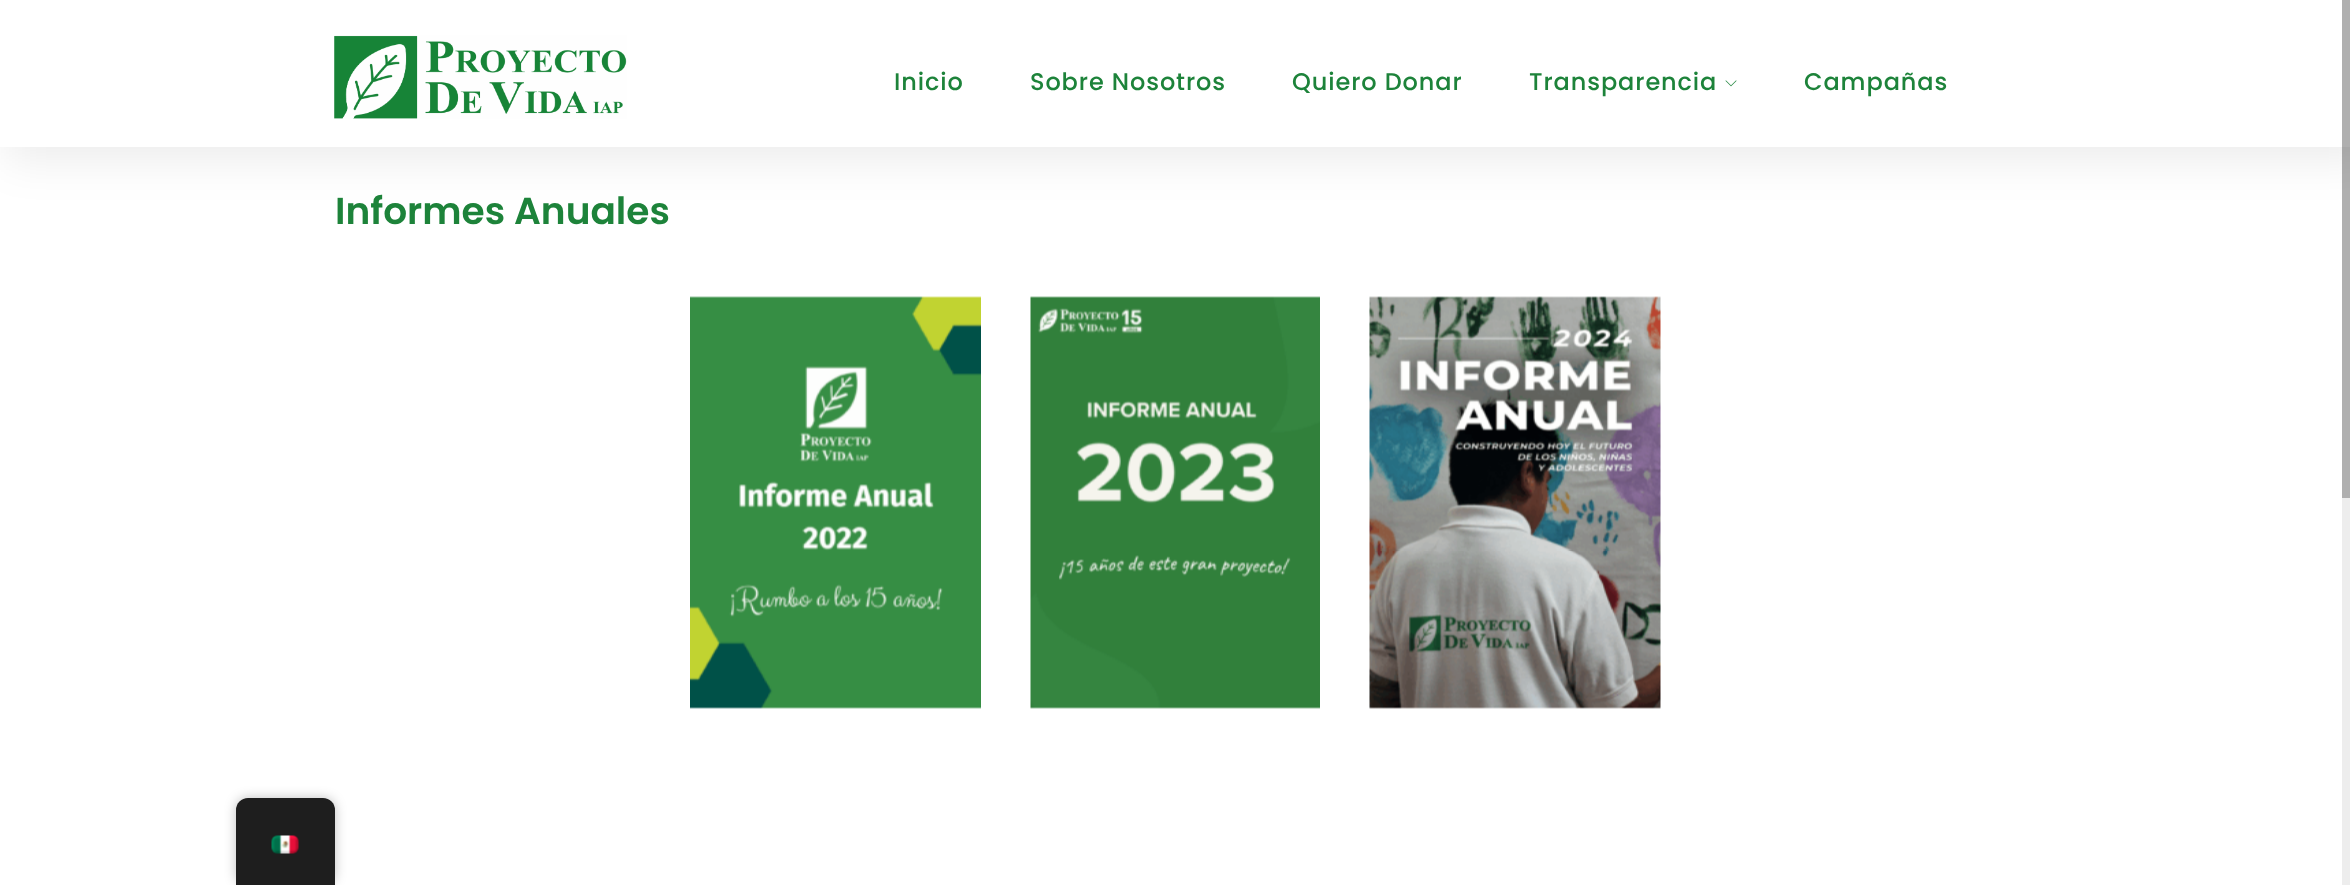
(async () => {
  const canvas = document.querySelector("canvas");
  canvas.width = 2350;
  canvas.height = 885;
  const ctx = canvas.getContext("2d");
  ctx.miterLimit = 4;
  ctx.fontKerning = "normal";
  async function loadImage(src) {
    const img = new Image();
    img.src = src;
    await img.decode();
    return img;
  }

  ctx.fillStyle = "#ffffff";
  ctx.fillRect(0, 0, 2350, 885);
  ctx.fillStyle = "rgba(0, 0, 0, 0.08)";
  ctx.filter = "blur(22.5px)";
  ctx.beginPath();
  ctx.rect(5, -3, 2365, 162);
  ctx.fill();
  ctx.filter = "none";
  ctx.fillStyle = "#ffffff";
  ctx.fillRect(0, 0, 2350, 147);
  ctx.drawImage(await loadImage("img/1.png"), 334, 35, 293, 84);
  ctx.drawImage(await loadImage("img/2.png"), 1725, 80, 12, 7);
  ctx.drawImage(await loadImage("img/3.png"), 690, 296, 291, 413);
  ctx.drawImage(await loadImage("img/4.png"), 1030, 296, 290, 413);
  ctx.drawImage(await loadImage("img/5.png"), 1369, 296, 292, 413);
  ctx.fillStyle = "rgba(0, 0, 0, 0.07)";
  ctx.fillRect(2342, 0, 8, 885);
  ctx.fillStyle = "rgba(66, 66, 66, 0.36)";
  ctx.fillRect(2342, 0, 8, 498);
  ctx.fillStyle = "rgba(0, 0, 0, 0.25)";
  ctx.filter = "blur(6px)";
  ctx.beginPath();
  ctx.roundRect(236, 798, 99, 87, 12);
  ctx.fill();
  ctx.filter = "none";
  ctx.fillStyle = "#1e1e1e";
  ctx.beginPath();
  ctx.roundRect(236, 798, 99, 87, [12, 12, 0, 0]);
  ctx.fill();
  ctx.drawImage(await loadImage("img/6.png"), 271, 835, 28, 19);
  ctx.letterSpacing = "0.9px";
  ctx.font = "500 24px Poppins";
  ctx.fillStyle = "#1d833a";
  for (const [text, x, y] of [
    ["Inicio", 894, 90],
    ["Sobre Nosotros", 1030, 90],
    ["Quiero Donar", 1292, 90],
    ["Transparencia", 1529, 90],
    ["Campañas", 1804, 90],
  ]) {
    ctx.fillText(text, x, y);
  }
  ctx.letterSpacing = "0px";
  ctx.font = "600 37.5px Poppins";
  ctx.fillText("Informes Anuales", 335, 224);
})();
